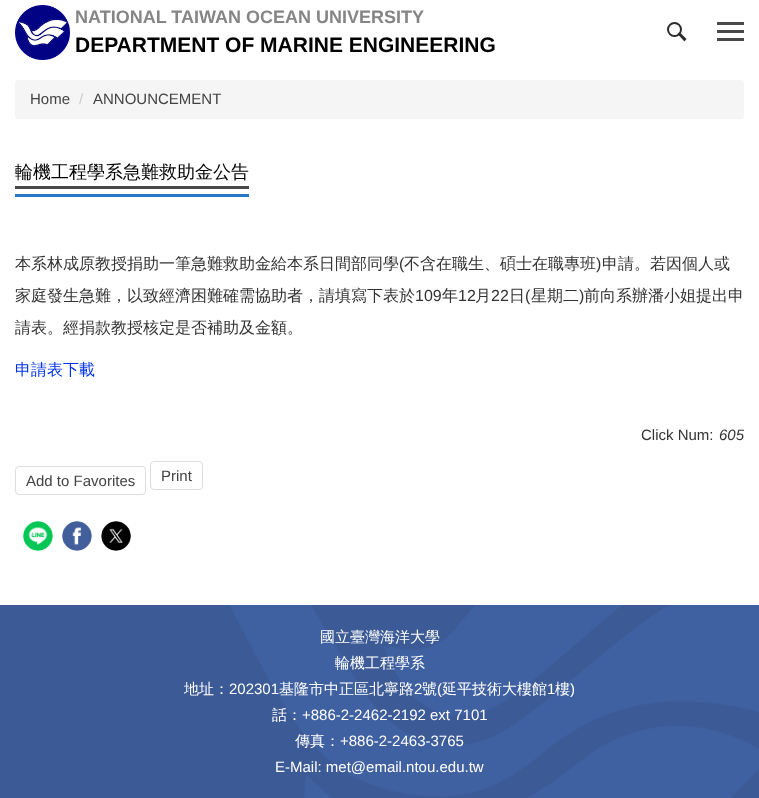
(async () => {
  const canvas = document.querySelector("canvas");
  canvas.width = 759;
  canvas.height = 798;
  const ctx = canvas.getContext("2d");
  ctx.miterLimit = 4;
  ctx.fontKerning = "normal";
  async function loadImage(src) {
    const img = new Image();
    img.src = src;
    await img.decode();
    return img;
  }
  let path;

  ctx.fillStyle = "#ffffff";
  ctx.fillRect(0, 0, 759, 798);
  ctx.drawImage(await loadImage("img/1.png"), 15, 5, 55, 55);
  ctx.beginPath();
  ctx.arc(674.5, 29.5, 6.5, 0, Math.PI * 2);
  ctx.strokeStyle = "#2c2c2c";
  ctx.lineWidth = 2;
  ctx.stroke();
  ctx.fillStyle = "#2c2c2c";
  path = new Path2D("M679.5 32L686.5 39L684.5 41.5L677.5 34Z");
  ctx.fill(path);
  for (const [x, y, w, h, color] of [
    [717, 30, 27, 3, "#494949"],
    [717, 22, 27, 3, "#494949"],
    [717, 38, 27, 3, "#494949"],
  ]) {
    ctx.fillStyle = color;
    ctx.fillRect(x, y, w, h);
  }
  ctx.fillStyle = "#f5f5f5";
  ctx.beginPath();
  ctx.roundRect(15, 80, 729, 39, 4);
  ctx.fill();
  ctx.fillStyle = "#2878c8";
  ctx.fillRect(15, 194, 234, 3);
  ctx.fillStyle = "#494949";
  ctx.fillRect(15, 186, 234, 3);
  ctx.beginPath();
  ctx.roundRect(15.5, 466.5, 130, 28, 3.5);
  ctx.strokeStyle = "#dddddd";
  ctx.lineWidth = 1;
  ctx.stroke();
  ctx.beginPath();
  ctx.roundRect(150.5, 461.5, 52, 28, 3.5);
  ctx.stroke();
  ctx.drawImage(await loadImage("img/2.png"), 23, 521, 30, 30);
  ctx.drawImage(await loadImage("img/3.png"), 62, 521, 30, 30);
  ctx.drawImage(await loadImage("img/4.png"), 101, 521, 30, 30);
  ctx.fillStyle = "#3c5a96";
  ctx.fillRect(0, 605, 759, 193);
  ctx.drawImage(await loadImage("img/5.png"), 229, 605, 530, 193);
  ctx.font = "bold 18px Liberation Sans";
  ctx.fillStyle = "#858585";
  ctx.fillText("NATIONAL TAIWAN OCEAN UNIVERSITY", 75, 23);
  ctx.font = "bold 21px Liberation Sans";
  ctx.fillStyle = "#000000";
  ctx.fillText("DEPARTMENT OF MARINE ENGINEERING", 75, 52);
  ctx.font = "15px Liberation Sans";
  ctx.fillStyle = "#434343";
  ctx.fillText("Home", 30, 104);
  ctx.fillStyle = "#cccccc";
  ctx.fillText("/", 79, 104);
  ctx.fillStyle = "#434343";
  ctx.fillText("ANNOUNCEMENT", 93, 104);
  ctx.font = "500 18px WenQuanYi Zen Hei";
  ctx.fillStyle = "#000000";
  ctx.fillText("輪機工程學系急難救助金公告", 15, 178);
  ctx.font = "500 16px WenQuanYi Zen Hei";
  ctx.fillStyle = "#333333";
  ctx.fillText("本系林成原教授捐助一筆急難救助金給本系日間部同學", 15, 269);
  ctx.font = "16px Liberation Sans";
  ctx.fillText("(", 399, 269);
  ctx.font = "500 16px WenQuanYi Zen Hei";
  ctx.fillText("不含在職生、碩士在職專班", 404, 269);
  ctx.font = "16px Liberation Sans";
  ctx.fillText(")", 596, 269);
  ctx.font = "500 16px WenQuanYi Zen Hei";
  ctx.fillText("申請。若因個人或", 602, 269);
  ctx.fillText("家庭發生急難，以致經濟困難確需協助者，請填寫下表於", 15, 301);
  ctx.font = "16px Liberation Sans";
  ctx.fillText("109", 415, 301);
  ctx.font = "500 16px WenQuanYi Zen Hei";
  ctx.fillText("年", 442, 301);
  ctx.font = "16px Liberation Sans";
  ctx.fillText("12", 458, 301);
  ctx.font = "500 16px WenQuanYi Zen Hei";
  ctx.fillText("月", 475, 301);
  ctx.font = "16px Liberation Sans";
  ctx.fillText("22", 491, 301);
  ctx.font = "500 16px WenQuanYi Zen Hei";
  ctx.fillText("日", 509, 301);
  ctx.font = "16px Liberation Sans";
  ctx.fillText("(", 525, 301);
  ctx.font = "500 16px WenQuanYi Zen Hei";
  ctx.fillText("星期二", 531, 301);
  ctx.font = "16px Liberation Sans";
  ctx.fillText(")", 579, 301);
  ctx.font = "500 16px WenQuanYi Zen Hei";
  ctx.fillText("前向系辦潘小姐提出申", 584, 301);
  ctx.fillText("請表。經捐款教授核定是否補助及金額。", 15, 333);
  ctx.fillStyle = "#0033ee";
  ctx.fillText("申請表下載", 15, 375);
  ctx.font = "15px Liberation Sans";
  ctx.fillStyle = "#333333";
  ctx.fillText("Click Num:", 641, 440);
  ctx.font = "italic 15px Liberation Sans";
  ctx.fillText("605", 719, 440);
  ctx.font = "15px Liberation Sans";
  ctx.fillStyle = "#434343";
  ctx.fillText("Add to Favorites", 26, 486);
  ctx.fillText("Print", 161, 481);
  ctx.font = "500 15px WenQuanYi Zen Hei";
  ctx.fillStyle = "#ffffff";
  for (const [text, x, y] of [
    ["國立臺灣海洋大學", 320, 642],
    ["輪機工程學系", 335, 668],
    ["地址：", 184, 694],
  ]) {
    ctx.fillText(text, x, y);
  }
  ctx.font = "15px Liberation Sans";
  ctx.fillText("202301", 229, 694);
  ctx.font = "500 15px WenQuanYi Zen Hei";
  ctx.fillText("基隆市中正區北寧路", 279, 694);
  ctx.font = "15px Liberation Sans";
  ctx.fillText("2", 414, 694);
  ctx.font = "500 15px WenQuanYi Zen Hei";
  ctx.fillText("號", 422, 694);
  ctx.font = "15px Liberation Sans";
  ctx.fillText("(", 437, 694);
  ctx.font = "500 15px WenQuanYi Zen Hei";
  ctx.fillText("延平技術大樓館", 442, 694);
  ctx.font = "15px Liberation Sans";
  ctx.fillText("1", 547, 694);
  ctx.font = "500 15px WenQuanYi Zen Hei";
  ctx.fillText("樓", 555, 694);
  ctx.font = "15px Liberation Sans";
  ctx.fillText(")", 570, 694);
  ctx.font = "500 15px WenQuanYi Zen Hei";
  ctx.fillText("話：", 272, 720);
  ctx.font = "15px Liberation Sans";
  ctx.fillText("+886-2-2462-2192 ext 7101", 302, 720);
  ctx.font = "500 15px WenQuanYi Zen Hei";
  ctx.fillText("傳真：", 295, 746);
  ctx.font = "15px Liberation Sans";
  ctx.fillText("+886-2-2463-3765", 340, 746);
  ctx.fillText("E-Mail: met@email.ntou.edu.tw", 275, 772);
})();
